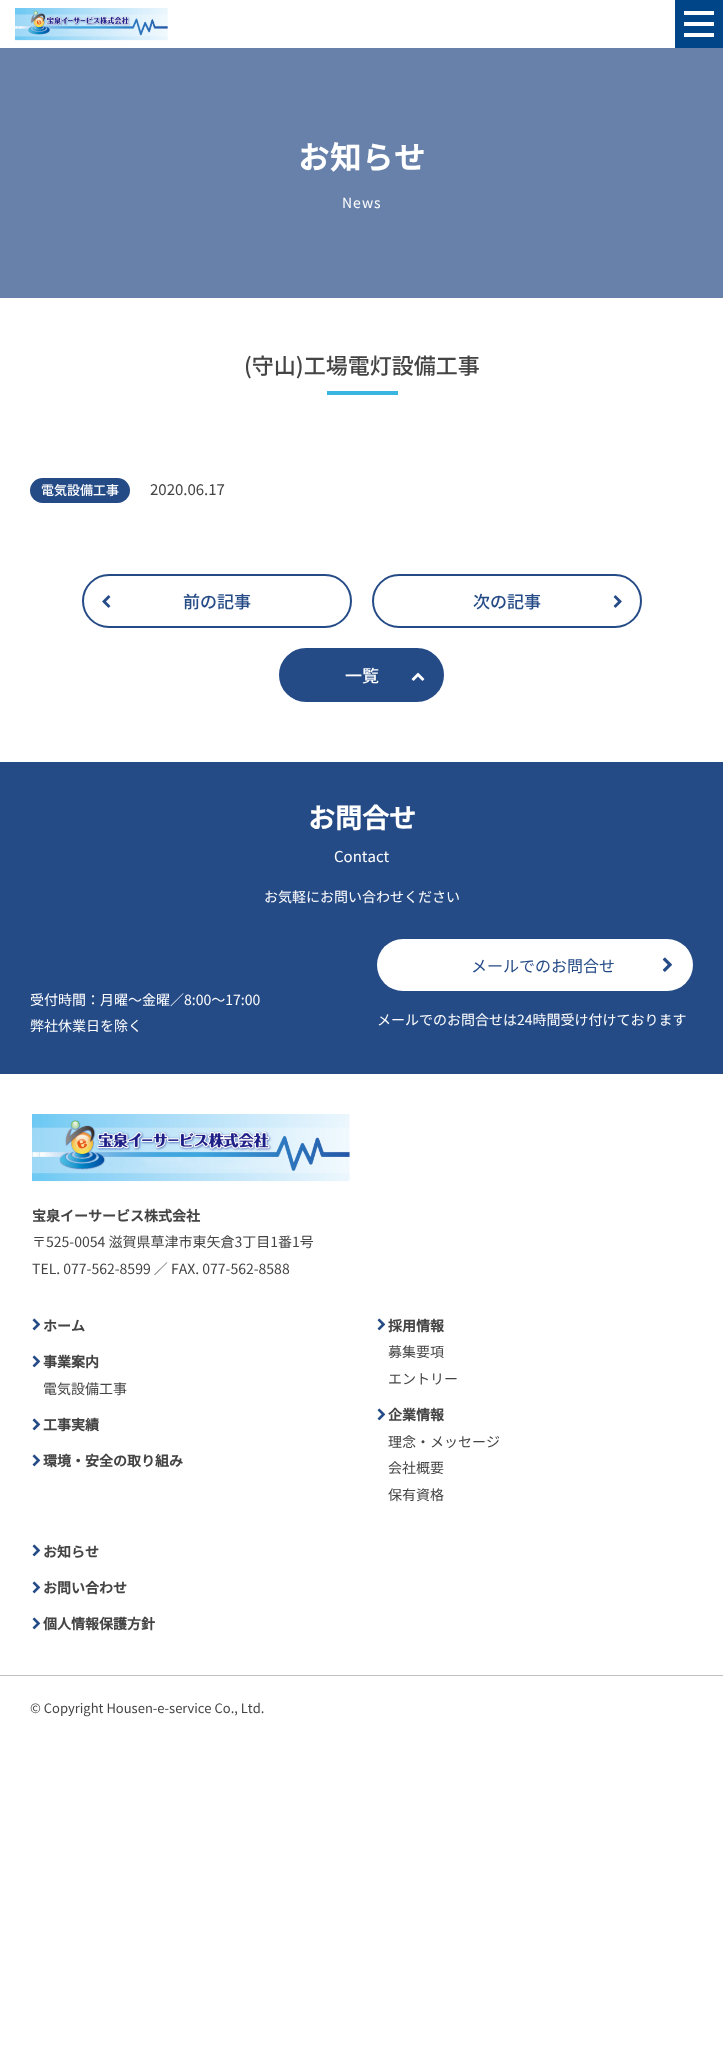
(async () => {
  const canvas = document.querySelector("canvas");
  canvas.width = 723;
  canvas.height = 2050;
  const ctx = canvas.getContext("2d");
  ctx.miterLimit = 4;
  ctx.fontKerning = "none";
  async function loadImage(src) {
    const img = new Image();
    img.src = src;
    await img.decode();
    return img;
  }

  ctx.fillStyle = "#ffffff";
  ctx.fillRect(0, 0, 723, 2050);
  ctx.drawImage(await loadImage("img/1.png"), 15, 8, 153, 33);
  ctx.drawImage(await loadImage("img/2.png"), 675, 0, 48, 48);
  ctx.fillStyle = "#6781ab";
  ctx.fillRect(0, 48, 723, 250);
  ctx.fillStyle = "#38b5e0";
  ctx.fillRect(327, 391, 71, 4);
  ctx.fillStyle = "#254b87";
  ctx.beginPath();
  ctx.roundRect(30, 478, 100, 25, 12.5);
  ctx.fill();
  ctx.beginPath();
  ctx.roundRect(83, 575, 268, 52, 26);
  ctx.strokeStyle = "#254b87";
  ctx.lineWidth = 2;
  ctx.stroke();
  ctx.drawImage(await loadImage("img/3.png"), 102, 595, 9, 13);
  ctx.beginPath();
  ctx.roundRect(373, 575, 268, 52, 26);
  ctx.stroke();
  ctx.drawImage(await loadImage("img/4.png"), 613, 595, 9, 13);
  ctx.beginPath();
  ctx.roundRect(280, 649, 163, 52, 26);
  ctx.fill();
  ctx.stroke();
  ctx.drawImage(await loadImage("img/5.png"), 411, 672, 14, 9);
  ctx.fillRect(0, 762, 723, 312);
  ctx.fillStyle = "#ffffff";
  ctx.beginPath();
  ctx.roundRect(377, 939, 316, 52, 26);
  ctx.fill();
  ctx.drawImage(await loadImage("img/6.png"), 662, 957, 10, 15);
  ctx.drawImage(await loadImage("img/7.png"), 32, 1114, 318, 68);
  ctx.drawImage(await loadImage("img/8.png"), 32, 1318, 9, 13);
  ctx.drawImage(await loadImage("img/8.png"), 32, 1355, 9, 13);
  ctx.drawImage(await loadImage("img/8.png"), 32, 1418, 9, 13);
  ctx.drawImage(await loadImage("img/8.png"), 32, 1454, 9, 13);
  ctx.drawImage(await loadImage("img/8.png"), 377, 1318, 9, 13);
  ctx.drawImage(await loadImage("img/8.png"), 377, 1408, 9, 13);
  ctx.drawImage(await loadImage("img/8.png"), 32, 1544, 9, 13);
  ctx.drawImage(await loadImage("img/8.png"), 32, 1581, 9, 13);
  ctx.drawImage(await loadImage("img/8.png"), 32, 1617, 9, 13);
  ctx.fillStyle = "#c0c0c0";
  ctx.fillRect(0, 1675, 723, 1);
  ctx.letterSpacing = "1px";
  ctx.font = "bold 31px Noto Sans JP";
  ctx.fillStyle = "#ffffff";
  ctx.fillText("お知らせ", 298, 169);
  ctx.font = "14px Noto Sans JP";
  ctx.fillText("News", 342, 208);
  ctx.letterSpacing = "0px";
  ctx.font = "500 22px Noto Sans JP";
  ctx.fillStyle = "#444444";
  ctx.fillText("(守山)工場電灯設備工事", 244, 374);
  ctx.font = "500 13px Noto Sans JP";
  ctx.fillStyle = "#ffffff";
  ctx.fillText("電気設備工事", 41, 495);
  ctx.font = "15px Noto Sans JP";
  ctx.fillStyle = "#444444";
  ctx.fillText("2020.06.17", 150, 495);
  ctx.font = "500 17px Noto Sans JP";
  ctx.fillStyle = "#254b87";
  ctx.fillText("前の記事", 183, 608);
  ctx.fillText("次の記事", 473, 608);
  ctx.fillStyle = "#ffffff";
  ctx.fillText("一覧", 345, 682);
  ctx.font = "bold 27px Noto Sans JP";
  ctx.fillText("お問合せ", 308, 828);
  ctx.font = "15px Noto Sans JP";
  ctx.fillText("Contact", 334, 862);
  ctx.font = "14px Noto Sans JP";
  for (const [text, x, y] of [
    ["お気軽にお問い合わせください", 264, 902],
    ["受付時間：月曜～金曜／8:00〜17:00", 30, 1005],
    ["弊社休業日を除く", 30, 1031],
  ]) {
    ctx.fillText(text, x, y);
  }
  ctx.font = "16px Noto Sans JP";
  ctx.fillStyle = "#254b87";
  ctx.fillText("メールでのお問合せ", 471, 972);
  ctx.font = "14px Noto Sans JP";
  ctx.fillStyle = "#ffffff";
  ctx.fillText("メールでのお問合せは24時間受け付けております", 377, 1025);
  ctx.font = "bold 14px Noto Sans JP";
  ctx.fillStyle = "#444444";
  ctx.fillText("宝泉イーサービス株式会社", 32, 1221);
  ctx.font = "14px Noto Sans JP";
  ctx.fillText("〒525-0054 滋賀県草津市東矢倉3丁目1番1号", 32, 1247);
  ctx.fillText("TEL. 077-562-8599 ／ FAX. 077-562-8588", 32, 1274);
  ctx.font = "bold 14px Noto Sans JP";
  ctx.fillText("ホーム", 43, 1331);
  ctx.fillText("事業案内", 43, 1367);
  ctx.font = "14px Noto Sans JP";
  ctx.fillText("電気設備工事", 43, 1394);
  ctx.font = "bold 14px Noto Sans JP";
  for (const [text, x, y] of [
    ["工事実績", 43, 1430],
    ["環境・安全の取り組み", 43, 1466],
    ["採用情報", 388, 1331],
  ]) {
    ctx.fillText(text, x, y);
  }
  ctx.font = "14px Noto Sans JP";
  ctx.fillText("募集要項", 388, 1357);
  ctx.fillText("エントリー", 388, 1384);
  ctx.font = "bold 14px Noto Sans JP";
  ctx.fillText("企業情報", 388, 1420);
  ctx.font = "14px Noto Sans JP";
  for (const [text, x, y] of [
    ["理念・メッセージ", 388, 1447],
    ["会社概要", 388, 1473],
    ["保有資格", 388, 1500],
  ]) {
    ctx.fillText(text, x, y);
  }
  ctx.font = "bold 14px Noto Sans JP";
  for (const [text, x, y] of [
    ["お知らせ", 43, 1557],
    ["お問い合わせ", 43, 1593],
    ["個人情報保護方針", 43, 1629],
  ]) {
    ctx.fillText(text, x, y);
  }
  ctx.font = "13px Noto Sans JP";
  ctx.fillText("© Copyright Housen-e-service Co., Ltd.", 30, 1713);
})();
